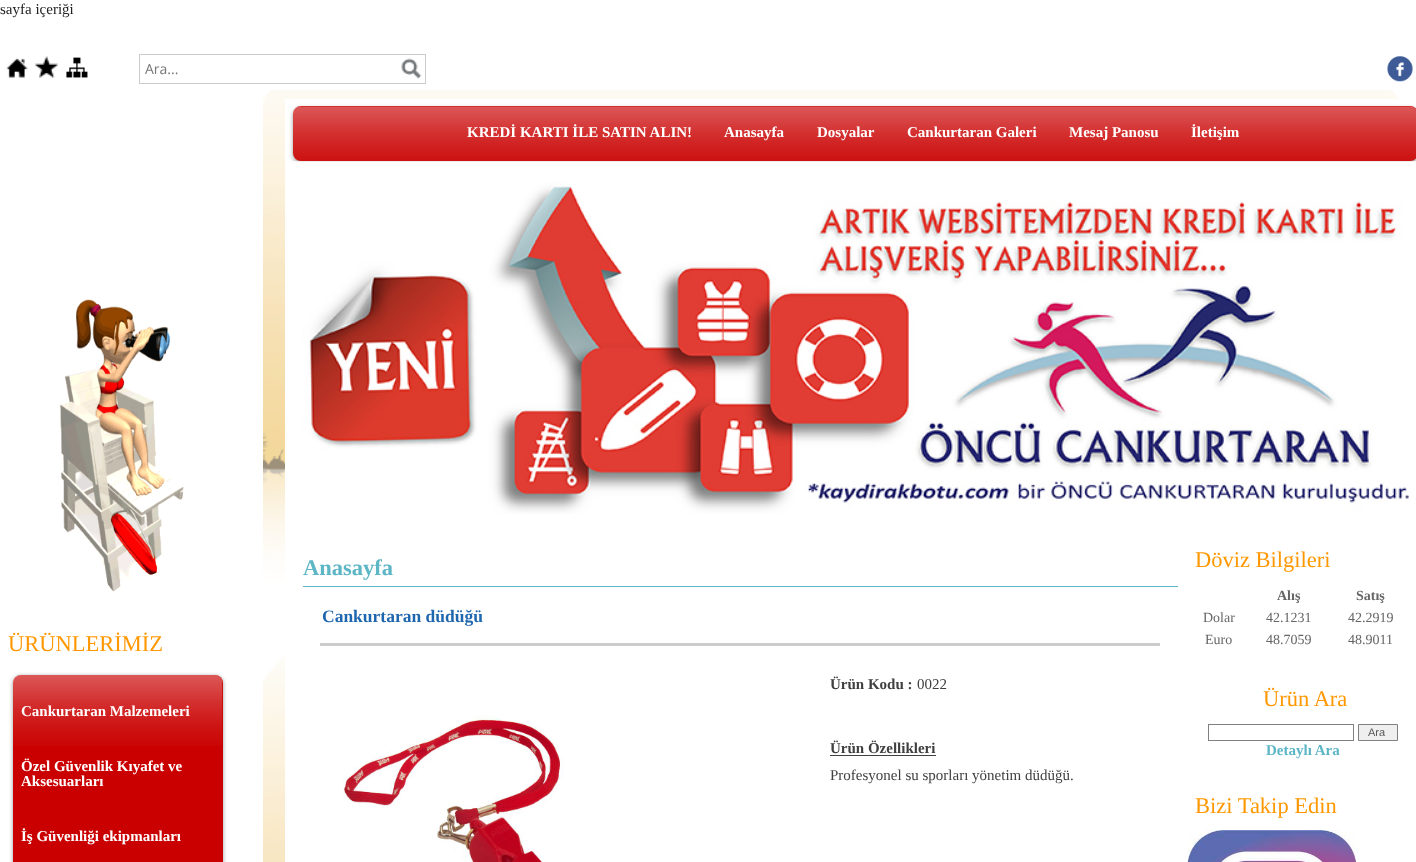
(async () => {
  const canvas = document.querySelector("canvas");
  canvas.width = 1416;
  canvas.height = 862;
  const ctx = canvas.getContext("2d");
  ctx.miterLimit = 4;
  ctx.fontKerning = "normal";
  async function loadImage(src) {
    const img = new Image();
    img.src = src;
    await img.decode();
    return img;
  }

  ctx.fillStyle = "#ffffff";
  ctx.fillRect(0, 0, 1416, 862);
  ctx.drawImage(await loadImage("img/1.png"), 0, 90, 1416, 772);
  ctx.drawImage(await loadImage("img/2.png"), 6, 58, 22, 20);
  ctx.drawImage(await loadImage("img/3.png"), 35, 56, 24, 22);
  ctx.drawImage(await loadImage("img/4.png"), 66, 57, 22, 21);
  ctx.strokeStyle = "#cccccc";
  ctx.strokeRect(139.5, 54.5, 286, 29);
  ctx.drawImage(await loadImage("img/5.png"), 401, 58, 21, 21);
  ctx.drawImage(await loadImage("img/6.png"), 1387, 56, 26, 26);
  ctx.fillRect(0, 99, 263, 763);
  ctx.drawImage(await loadImage("img/7.png"), 60, 299, 124, 293);
  ctx.fillStyle = "rgba(0, 0, 0, 0.4)";
  ctx.filter = "blur(2px)";
  ctx.beginPath();
  ctx.roundRect(13, 676, 210, 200, 8);
  ctx.fill();
  ctx.filter = "none";
  ctx.fillStyle = "#ca0000";
  ctx.beginPath();
  ctx.roundRect(13, 675, 210, 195, 8);
  ctx.fill();
  ctx.drawImage(await loadImage("img/8.png"), 13, 675, 210, 71);
  ctx.fillStyle = "#ffffff";
  ctx.fillRect(285, 99, 1131, 763);
  ctx.fillStyle = "rgba(0, 0, 0, 0.4)";
  ctx.filter = "blur(2px)";
  ctx.beginPath();
  ctx.roundRect(293, 108, 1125, 55, 8);
  ctx.fill();
  ctx.filter = "none";
  ctx.fillStyle = "#ca0000";
  ctx.beginPath();
  ctx.roundRect(293, 106, 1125, 55, 8);
  ctx.fill();
  ctx.drawImage(await loadImage("img/9.png"), 293, 106, 1123, 55);
  ctx.drawImage(await loadImage("img/10.png"), 293, 161, 1123, 353);
  ctx.fillStyle = "#5db6c5";
  ctx.fillRect(303, 586, 875, 1);
  ctx.fillStyle = "#cccccc";
  ctx.fillRect(320, 643, 840, 3);
  ctx.drawImage(await loadImage("img/11.png"), 343, 715, 221, 147);
  ctx.fillStyle = "#404040";
  ctx.fillRect(830, 755, 106, 1);
  ctx.strokeStyle = "#808080";
  ctx.strokeRect(1208.5, 724.5, 145, 16);
  ctx.fillStyle = "#efefef";
  ctx.beginPath();
  ctx.rect(1358.5, 724.5, 39, 16);
  ctx.fill();
  ctx.stroke();
  ctx.drawImage(await loadImage("img/12.png"), 1187, 830, 170, 32);
  ctx.font = "15px Liberation Serif";
  ctx.fillStyle = "#222222";
  ctx.fillText("sayfa içeriği", 0, 14);
  ctx.font = "14px Open Sans";
  ctx.fillStyle = "#757575";
  ctx.fillText("Ara...", 145, 74);
  ctx.font = "22.5px Liberation Serif";
  ctx.fillStyle = "#ff9800";
  ctx.fillText("ÜRÜNLERİMİZ", 8, 651);
  ctx.font = "bold 15px Liberation Serif";
  ctx.fillStyle = "#ffffff";
  for (const [text, x, y] of [
    ["Cankurtaran Malzemeleri", 21, 716],
    ["Özel Güvenlik Kıyafet ve", 21, 771],
    ["Aksesuarları", 21, 786],
    ["İş Güvenliği ekipmanları", 21, 841],
    ["KREDİ KARTI İLE SATIN ALIN!", 467, 137],
    ["Anasayfa", 724, 137],
    ["Dosyalar", 817, 137],
    ["Cankurtaran Galeri", 907, 137],
    ["Mesaj Panosu", 1069, 137],
    ["İletişim", 1191, 137],
  ]) {
    ctx.fillText(text, x, y);
  }
  ctx.font = "bold 22.5px Liberation Serif";
  ctx.fillStyle = "#5db6c5";
  ctx.fillText("Anasayfa", 303, 575);
  ctx.font = "bold 17.5px Liberation Serif";
  ctx.fillStyle = "#1e66ae";
  ctx.fillText("Cankurtaran düdüğü", 322, 622);
  ctx.font = "bold 15px Liberation Serif";
  ctx.fillStyle = "#404040";
  ctx.fillText("Ürün Kodu :", 830, 689);
  ctx.font = "15px Liberation Serif";
  ctx.fillText("0022", 917, 689);
  ctx.font = "bold 15px Liberation Serif";
  ctx.fillText("Ürün Özellikleri", 830, 753);
  ctx.font = "15px Liberation Serif";
  ctx.fillText("Profesyonel su sporları yönetim düdüğü.", 830, 780);
  ctx.font = "22.5px Liberation Serif";
  ctx.fillStyle = "#ff9800";
  ctx.fillText("Döviz Bilgileri", 1195, 567);
  ctx.font = "bold 14px Liberation Serif";
  ctx.fillStyle = "#666666";
  ctx.fillText("Alış", 1277, 600);
  ctx.fillText("Satış", 1356, 600);
  ctx.font = "14px Liberation Serif";
  for (const [text, x, y] of [
    ["Dolar", 1203, 622],
    ["42.1231", 1266, 622],
    ["42.2919", 1348, 622],
    ["Euro", 1205, 644],
    ["48.7059", 1266, 644],
    ["48.9011", 1348, 644],
  ]) {
    ctx.fillText(text, x, y);
  }
  ctx.font = "22.5px Liberation Serif";
  ctx.fillStyle = "#ff9800";
  ctx.fillText("Ürün Ara", 1263, 706);
  ctx.font = "11px Liberation Sans";
  ctx.fillStyle = "#585858";
  ctx.fillText("Ara", 1368, 736);
  ctx.font = "bold 15px Liberation Serif";
  ctx.fillStyle = "#5db6c5";
  ctx.fillText("Detaylı Ara", 1266, 755);
  ctx.font = "22.5px Liberation Serif";
  ctx.fillStyle = "#ff9800";
  ctx.fillText("Bizi Takip Edin", 1195, 813);
})();
